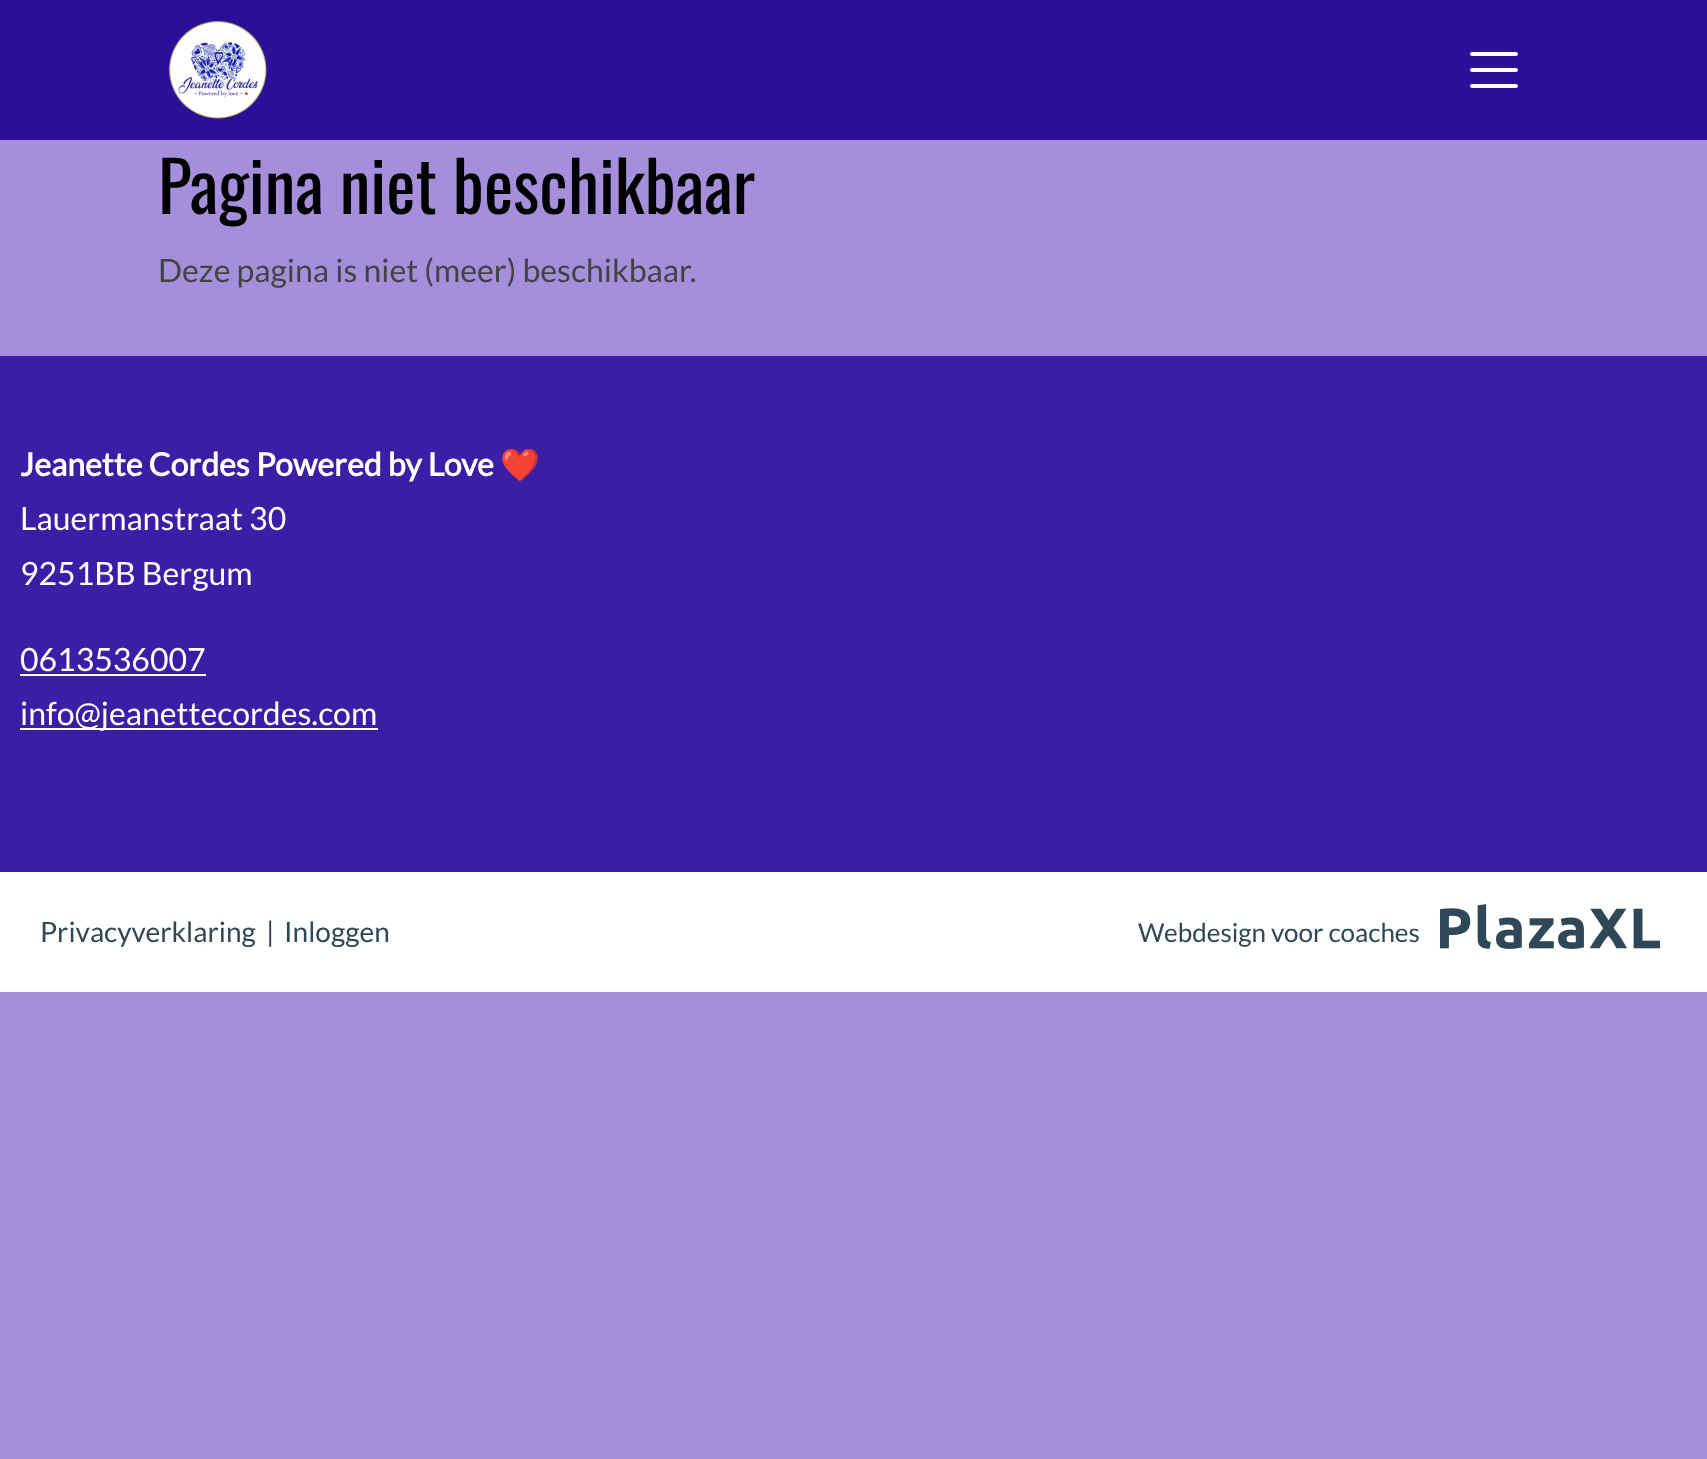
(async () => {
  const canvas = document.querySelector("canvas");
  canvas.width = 1707;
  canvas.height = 1459;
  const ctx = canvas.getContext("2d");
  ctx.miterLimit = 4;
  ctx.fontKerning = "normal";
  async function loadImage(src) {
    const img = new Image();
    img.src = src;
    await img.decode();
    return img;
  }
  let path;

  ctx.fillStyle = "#a58fdd";
  ctx.fillRect(0, 0, 1707, 1459);
  ctx.fillStyle = "#2c0f98";
  ctx.fillRect(0, 0, 1707, 140);
  ctx.drawImage(await loadImage("img/1.png"), 168, 20, 99, 99);
  path = new Path2D("M1472 54H1516M1472 70H1516M1472 86H1516");
  ctx.strokeStyle = "#ffffff";
  ctx.lineWidth = 4;
  ctx.lineCap = "round";
  ctx.stroke(path);
  for (const [x, y, w, h, color] of [
    [0, 872, 1707, 120, "#ffffff"],
    [0, 356, 1707, 516, "#3a1ea5"],
    [20, 674, 186, 2, "#ffffff"],
    [20, 728, 358, 2, "#ffffff"],
  ]) {
    ctx.fillStyle = color;
    ctx.fillRect(x, y, w, h);
  }
  ctx.drawImage(await loadImage("img/2.png"), 1440, 904, 221, 45);
  ctx.font = "69.6px Oswald";
  ctx.fillStyle = "#000000";
  ctx.fillText("Pagina niet beschikbaar", 158, 214);
  ctx.font = "32px Lato";
  ctx.fillStyle = "#434343";
  ctx.fillText("Deze pagina is niet (meer) beschikbaar.", 158, 282);
  ctx.font = "bold 32px Lato";
  ctx.fillStyle = "#ffffff";
  ctx.fillText("Jeanette Cordes Powered by Love", 20, 476);
  ctx.font = "bold 32px Noto Color Emoji";
  ctx.fillText("❤️", 500, 476);
  ctx.font = "32px Lato";
  for (const [text, x, y] of [
    ["Lauermanstraat 30", 20, 530],
    ["9251BB Bergum", 20, 585],
    ["0613536007", 20, 671],
    ["info@jeanettecordes.com", 20, 725],
  ]) {
    ctx.fillText(text, x, y);
  }
  ctx.font = "28px Lato";
  ctx.fillStyle = "#2f4858";
  for (const [text, x, y] of [
    ["Privacyverklaring", 40, 942],
    ["|", 266, 942],
    ["Inloggen", 284, 942],
  ]) {
    ctx.fillText(text, x, y);
  }
  ctx.font = "26px Lato";
  ctx.fillText("Webdesign voor coaches", 1138, 942);
})();
